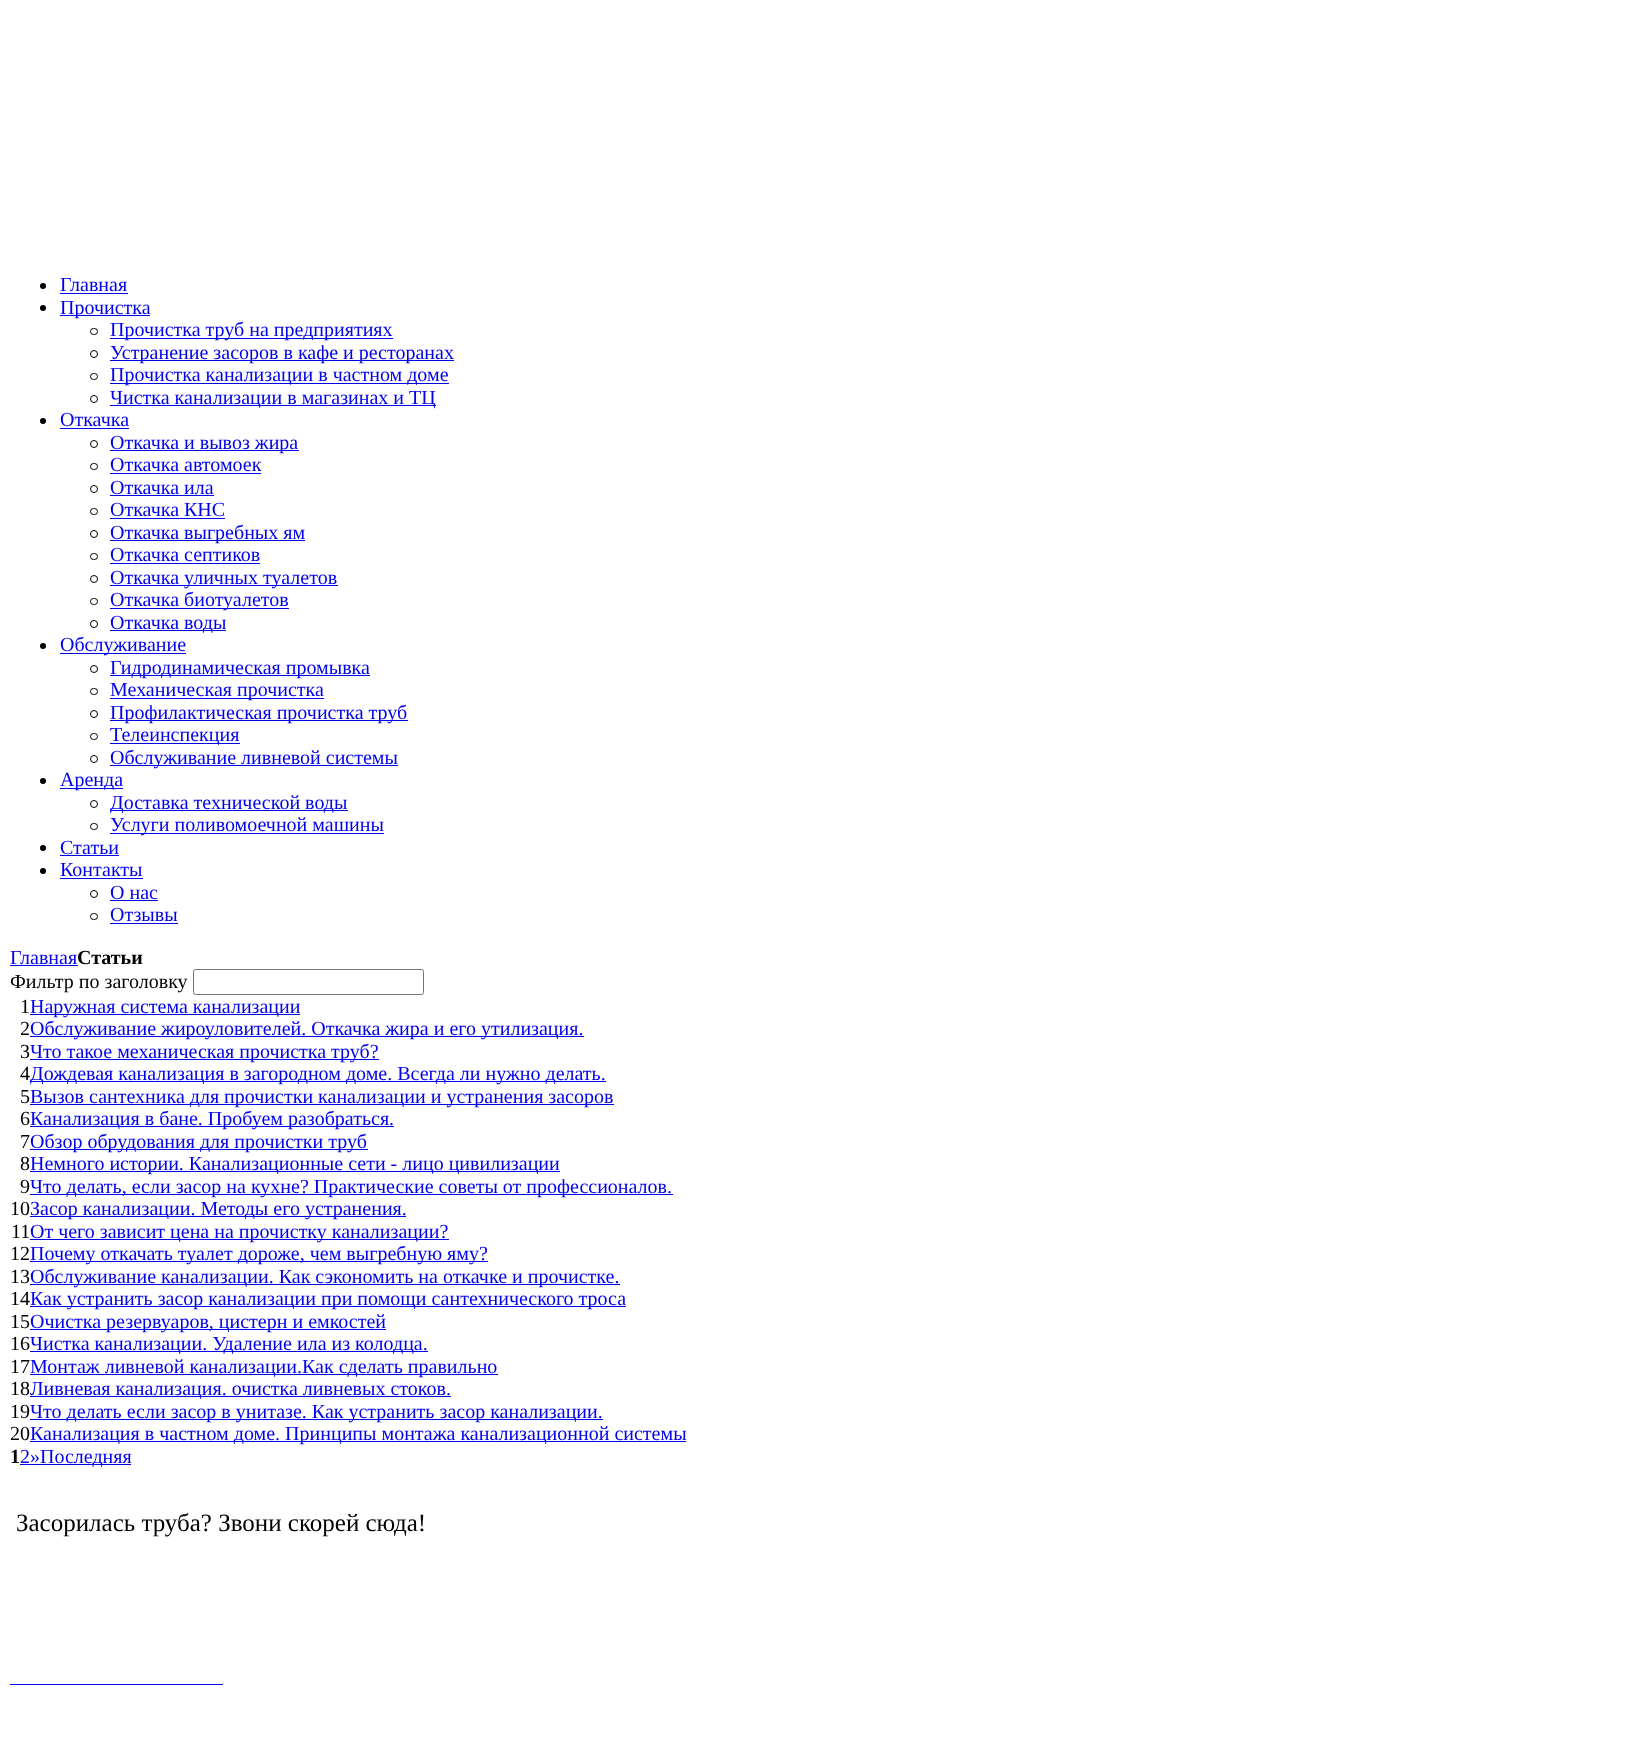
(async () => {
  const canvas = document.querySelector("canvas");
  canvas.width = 1642;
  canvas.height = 1738;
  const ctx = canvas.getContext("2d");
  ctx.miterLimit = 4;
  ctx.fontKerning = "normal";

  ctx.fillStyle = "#ffffff";
  ctx.fillRect(0, 0, 1642, 1738);
  ctx.fillStyle = "#000000";
  ctx.beginPath();
  ctx.arc(43, 286, 3, 0, Math.PI * 2);
  ctx.fill();
  ctx.fillStyle = "#0000ee";
  ctx.fillRect(60, 293, 68, 1);
  ctx.fillStyle = "#000000";
  ctx.beginPath();
  ctx.arc(43, 308, 3, 0, Math.PI * 2);
  ctx.fill();
  ctx.fillStyle = "#0000ee";
  ctx.fillRect(60, 315, 90, 1);
  ctx.beginPath();
  ctx.roundRect(90.5, 328.5, 7, 6, 3);
  ctx.strokeStyle = "#000000";
  ctx.stroke();
  ctx.fillRect(110, 338, 283, 1);
  ctx.beginPath();
  ctx.arc(94, 354, 3.5, 0, Math.PI * 2);
  ctx.stroke();
  ctx.fillRect(110, 360, 344, 1);
  ctx.beginPath();
  ctx.roundRect(90.5, 373.5, 7, 6, 3);
  ctx.stroke();
  ctx.fillRect(110, 383, 339, 1);
  ctx.beginPath();
  ctx.arc(94, 399, 3.5, 0, Math.PI * 2);
  ctx.stroke();
  ctx.fillRect(110, 405, 326, 1);
  ctx.fillStyle = "#000000";
  ctx.beginPath();
  ctx.arc(43, 421, 3, 0, Math.PI * 2);
  ctx.fill();
  ctx.fillStyle = "#0000ee";
  ctx.fillRect(60, 428, 69, 1);
  ctx.beginPath();
  ctx.arc(94, 444, 3.5, 0, Math.PI * 2);
  ctx.stroke();
  ctx.fillRect(110, 450, 189, 1);
  ctx.beginPath();
  ctx.roundRect(90.5, 463.5, 7, 6, 3);
  ctx.stroke();
  ctx.fillRect(110, 473, 151, 1);
  ctx.beginPath();
  ctx.arc(94, 489, 3.5, 0, Math.PI * 2);
  ctx.stroke();
  ctx.fillRect(110, 495, 104, 1);
  ctx.beginPath();
  ctx.roundRect(90.5, 508.5, 7, 6, 3);
  ctx.stroke();
  ctx.fillRect(110, 518, 115, 1);
  ctx.beginPath();
  ctx.arc(94, 534, 3.5, 0, Math.PI * 2);
  ctx.stroke();
  ctx.fillRect(110, 540, 195, 1);
  ctx.beginPath();
  ctx.roundRect(90.5, 553.5, 7, 6, 3);
  ctx.stroke();
  ctx.fillRect(110, 563, 150, 1);
  ctx.beginPath();
  ctx.arc(94, 579, 3.5, 0, Math.PI * 2);
  ctx.stroke();
  ctx.fillRect(110, 585, 228, 1);
  ctx.beginPath();
  ctx.roundRect(90.5, 598.5, 7, 6, 3);
  ctx.stroke();
  ctx.fillRect(110, 608, 179, 1);
  ctx.beginPath();
  ctx.arc(94, 624, 3.5, 0, Math.PI * 2);
  ctx.stroke();
  ctx.fillRect(110, 630, 116, 1);
  ctx.fillStyle = "#000000";
  ctx.beginPath();
  ctx.arc(43, 646, 3, 0, Math.PI * 2);
  ctx.fill();
  ctx.fillStyle = "#0000ee";
  ctx.fillRect(60, 653, 126, 1);
  ctx.beginPath();
  ctx.arc(94, 669, 3.5, 0, Math.PI * 2);
  ctx.stroke();
  ctx.fillRect(110, 675, 260, 1);
  ctx.beginPath();
  ctx.roundRect(90.5, 688.5, 7, 6, 3);
  ctx.stroke();
  ctx.fillRect(110, 698, 214, 1);
  ctx.beginPath();
  ctx.arc(94, 714, 3.5, 0, Math.PI * 2);
  ctx.stroke();
  ctx.fillRect(110, 720, 298, 1);
  ctx.beginPath();
  ctx.roundRect(90.5, 733.5, 7, 6, 3);
  ctx.stroke();
  ctx.fillRect(110, 743, 130, 1);
  ctx.beginPath();
  ctx.arc(94, 759, 3.5, 0, Math.PI * 2);
  ctx.stroke();
  ctx.fillRect(110, 765, 288, 1);
  ctx.fillStyle = "#000000";
  ctx.beginPath();
  ctx.arc(43, 781, 3, 0, Math.PI * 2);
  ctx.fill();
  ctx.fillStyle = "#0000ee";
  ctx.fillRect(60, 788, 63, 1);
  ctx.beginPath();
  ctx.arc(94, 804, 3.5, 0, Math.PI * 2);
  ctx.stroke();
  ctx.fillRect(110, 810, 238, 1);
  ctx.beginPath();
  ctx.roundRect(90.5, 823.5, 7, 6, 3);
  ctx.stroke();
  ctx.fillRect(110, 833, 274, 1);
  ctx.fillStyle = "#000000";
  ctx.beginPath();
  ctx.arc(43, 848, 3, 0, Math.PI * 2);
  ctx.fill();
  ctx.fillStyle = "#0000ee";
  ctx.fillRect(60, 855, 59, 1);
  ctx.fillStyle = "#000000";
  ctx.beginPath();
  ctx.arc(43, 871, 3, 0, Math.PI * 2);
  ctx.fill();
  ctx.fillStyle = "#0000ee";
  ctx.fillRect(60, 878, 83, 1);
  ctx.beginPath();
  ctx.arc(94, 894, 3.5, 0, Math.PI * 2);
  ctx.stroke();
  ctx.fillRect(110, 900, 48, 1);
  ctx.beginPath();
  ctx.roundRect(90.5, 913.5, 7, 6, 3);
  ctx.stroke();
  ctx.fillRect(110, 923, 68, 1);
  ctx.fillRect(10, 965, 68, 1);
  ctx.beginPath();
  ctx.roundRect(193.5, 969.5, 230, 25, 2);
  ctx.strokeStyle = "#767676";
  ctx.stroke();
  for (const [x, y, w, h, color] of [
    [30, 1014, 270, 1, "#0000ee"],
    [30, 1036, 554, 1, "#0000ee"],
    [30, 1059, 349, 1, "#0000ee"],
    [30, 1081, 576, 1, "#0000ee"],
    [30, 1104, 584, 1, "#0000ee"],
    [30, 1126, 364, 1, "#0000ee"],
    [30, 1149, 338, 1, "#0000ee"],
    [30, 1171, 530, 1, "#0000ee"],
    [30, 1194, 643, 1, "#0000ee"],
    [30, 1216, 376, 1, "#0000ee"],
    [30, 1239, 419, 1, "#0000ee"],
    [30, 1261, 458, 1, "#0000ee"],
    [30, 1284, 590, 1, "#0000ee"],
    [30, 1306, 596, 1, "#0000ee"],
    [30, 1329, 356, 1, "#0000ee"],
    [30, 1351, 398, 1, "#0000ee"],
    [30, 1374, 468, 1, "#0000ee"],
    [30, 1396, 421, 1, "#0000ee"],
    [30, 1419, 573, 1, "#0000ee"],
    [30, 1441, 656, 1, "#0000ee"],
    [20, 1464, 111, 1, "#0000ee"],
    [10, 1684, 213, 1, "#0000ee"],
  ]) {
    ctx.fillStyle = color;
    ctx.fillRect(x, y, w, h);
  }
  ctx.font = "20px Liberation Serif";
  for (const [text, x, y] of [
    ["Главная", 60, 291],
    ["Прочистка", 60, 314],
    ["Прочистка труб на предприятиях", 110, 336],
    ["Устранение засоров в кафе и ресторанах", 110, 359],
    ["Прочистка канализации в частном доме", 110, 381],
    ["Чистка канализации в магазинах и ТЦ", 110, 404],
    ["Откачка", 60, 426],
    ["Откачка и вывоз жира", 110, 449],
    ["Откачка автомоек", 110, 471],
    ["Откачка ила", 110, 494],
    ["Откачка КНС", 110, 516],
    ["Откачка выгребных ям", 110, 539],
    ["Откачка септиков", 110, 561],
    ["Откачка уличных туалетов", 110, 584],
    ["Откачка биотуалетов", 110, 606],
    ["Откачка воды", 110, 629],
    ["Обслуживание", 60, 651],
    ["Гидродинамическая промывка", 110, 674],
    ["Механическая прочистка", 110, 696],
    ["Профилактическая прочистка труб", 110, 719],
    ["Телеинспекция", 110, 741],
    ["Обслуживание ливневой системы", 110, 764],
    ["Аренда", 60, 786],
    ["Доставка технической воды", 110, 809],
    ["Услуги поливомоечной машины", 110, 831],
    ["Статьи", 60, 854],
    ["Контакты", 60, 876],
    ["О нас", 110, 899],
    ["Отзывы", 110, 921],
    ["Главная", 10, 964],
  ]) {
    ctx.fillText(text, x, y);
  }
  ctx.font = "bold 20px Liberation Serif";
  ctx.fillStyle = "#000000";
  ctx.fillText("Статьи", 77, 964);
  ctx.font = "20px Liberation Serif";
  ctx.fillText("Фильтр по заголовку", 10, 988);
  ctx.fillText("1", 20, 1013);
  ctx.fillStyle = "#0000ee";
  ctx.fillText("Наружная система канализации", 30, 1013);
  ctx.fillStyle = "#000000";
  ctx.fillText("2", 20, 1035);
  ctx.fillStyle = "#0000ee";
  ctx.fillText("Обслуживание жироуловителей. Откачка жира и его утилизация.", 30, 1035);
  ctx.fillStyle = "#000000";
  ctx.fillText("3", 20, 1058);
  ctx.fillStyle = "#0000ee";
  ctx.fillText("Что такое механическая прочистка труб?", 30, 1058);
  ctx.fillStyle = "#000000";
  ctx.fillText("4", 20, 1080);
  ctx.fillStyle = "#0000ee";
  ctx.fillText("Дождевая канализация в загородном доме. Всегда ли нужно делать.", 30, 1080);
  ctx.fillStyle = "#000000";
  ctx.fillText("5", 20, 1103);
  ctx.fillStyle = "#0000ee";
  ctx.fillText("Вызов сантехника для прочистки канализации и устранения засоров", 30, 1103);
  ctx.fillStyle = "#000000";
  ctx.fillText("6", 20, 1125);
  ctx.fillStyle = "#0000ee";
  ctx.fillText("Канализация в бане. Пробуем разобраться.", 30, 1125);
  ctx.fillStyle = "#000000";
  ctx.fillText("7", 20, 1148);
  ctx.fillStyle = "#0000ee";
  ctx.fillText("Обзор обрудования для прочистки труб", 30, 1148);
  ctx.fillStyle = "#000000";
  ctx.fillText("8", 20, 1170);
  ctx.fillStyle = "#0000ee";
  ctx.fillText("Немного истории. Канализационные сети - лицо цивилизации", 30, 1170);
  ctx.fillStyle = "#000000";
  ctx.fillText("9", 20, 1193);
  ctx.fillStyle = "#0000ee";
  ctx.fillText("Что делать, если засор на кухне? Практические советы от профессионалов.", 30, 1193);
  ctx.fillStyle = "#000000";
  ctx.fillText("10", 10, 1215);
  ctx.fillStyle = "#0000ee";
  ctx.fillText("Засор канализации. Методы его устранения.", 30, 1215);
  ctx.fillStyle = "#000000";
  ctx.fillText("11", 11, 1238);
  ctx.fillStyle = "#0000ee";
  ctx.fillText("От чего зависит цена на прочистку канализации?", 30, 1238);
  ctx.fillStyle = "#000000";
  ctx.fillText("12", 10, 1260);
  ctx.fillStyle = "#0000ee";
  ctx.fillText("Почему откачать туалет дороже, чем выгребную яму?", 30, 1260);
  ctx.fillStyle = "#000000";
  ctx.fillText("13", 10, 1283);
  ctx.fillStyle = "#0000ee";
  ctx.fillText("Обслуживание канализации. Как сэкономить на откачке и прочистке.", 30, 1283);
  ctx.fillStyle = "#000000";
  ctx.fillText("14", 10, 1305);
  ctx.fillStyle = "#0000ee";
  ctx.fillText("Как устранить засор канализации при помощи сантехнического троса", 30, 1305);
  ctx.fillStyle = "#000000";
  ctx.fillText("15", 10, 1328);
  ctx.fillStyle = "#0000ee";
  ctx.fillText("Очистка резервуаров, цистерн и емкостей", 30, 1328);
  ctx.fillStyle = "#000000";
  ctx.fillText("16", 10, 1350);
  ctx.fillStyle = "#0000ee";
  ctx.fillText("Чистка канализации. Удаление ила из колодца.", 30, 1350);
  ctx.fillStyle = "#000000";
  ctx.fillText("17", 10, 1373);
  ctx.fillStyle = "#0000ee";
  ctx.fillText("Монтаж ливневой канализации.Как сделать правильно", 30, 1373);
  ctx.fillStyle = "#000000";
  ctx.fillText("18", 10, 1395);
  ctx.fillStyle = "#0000ee";
  ctx.fillText("Ливневая канализация. очистка ливневых стоков.", 30, 1395);
  ctx.fillStyle = "#000000";
  ctx.fillText("19", 10, 1418);
  ctx.fillStyle = "#0000ee";
  ctx.fillText("Что делать если засор в унитазе. Как устранить засор канализации.", 30, 1418);
  ctx.fillStyle = "#000000";
  ctx.fillText("20", 10, 1440);
  ctx.fillStyle = "#0000ee";
  ctx.fillText("Канализация в частном доме. Принципы монтажа канализационной системы", 30, 1440);
  ctx.font = "bold 20px Liberation Serif";
  ctx.fillStyle = "#000000";
  ctx.fillText("1", 10, 1463);
  ctx.font = "20px Liberation Serif";
  ctx.fillStyle = "#0000ee";
  ctx.fillText("2»Последняя", 20, 1463);
  ctx.font = "25px Liberation Serif";
  ctx.fillStyle = "#000000";
  ctx.fillText("Засорилась труба? Звони скорей сюда!", 16, 1531);
})();
